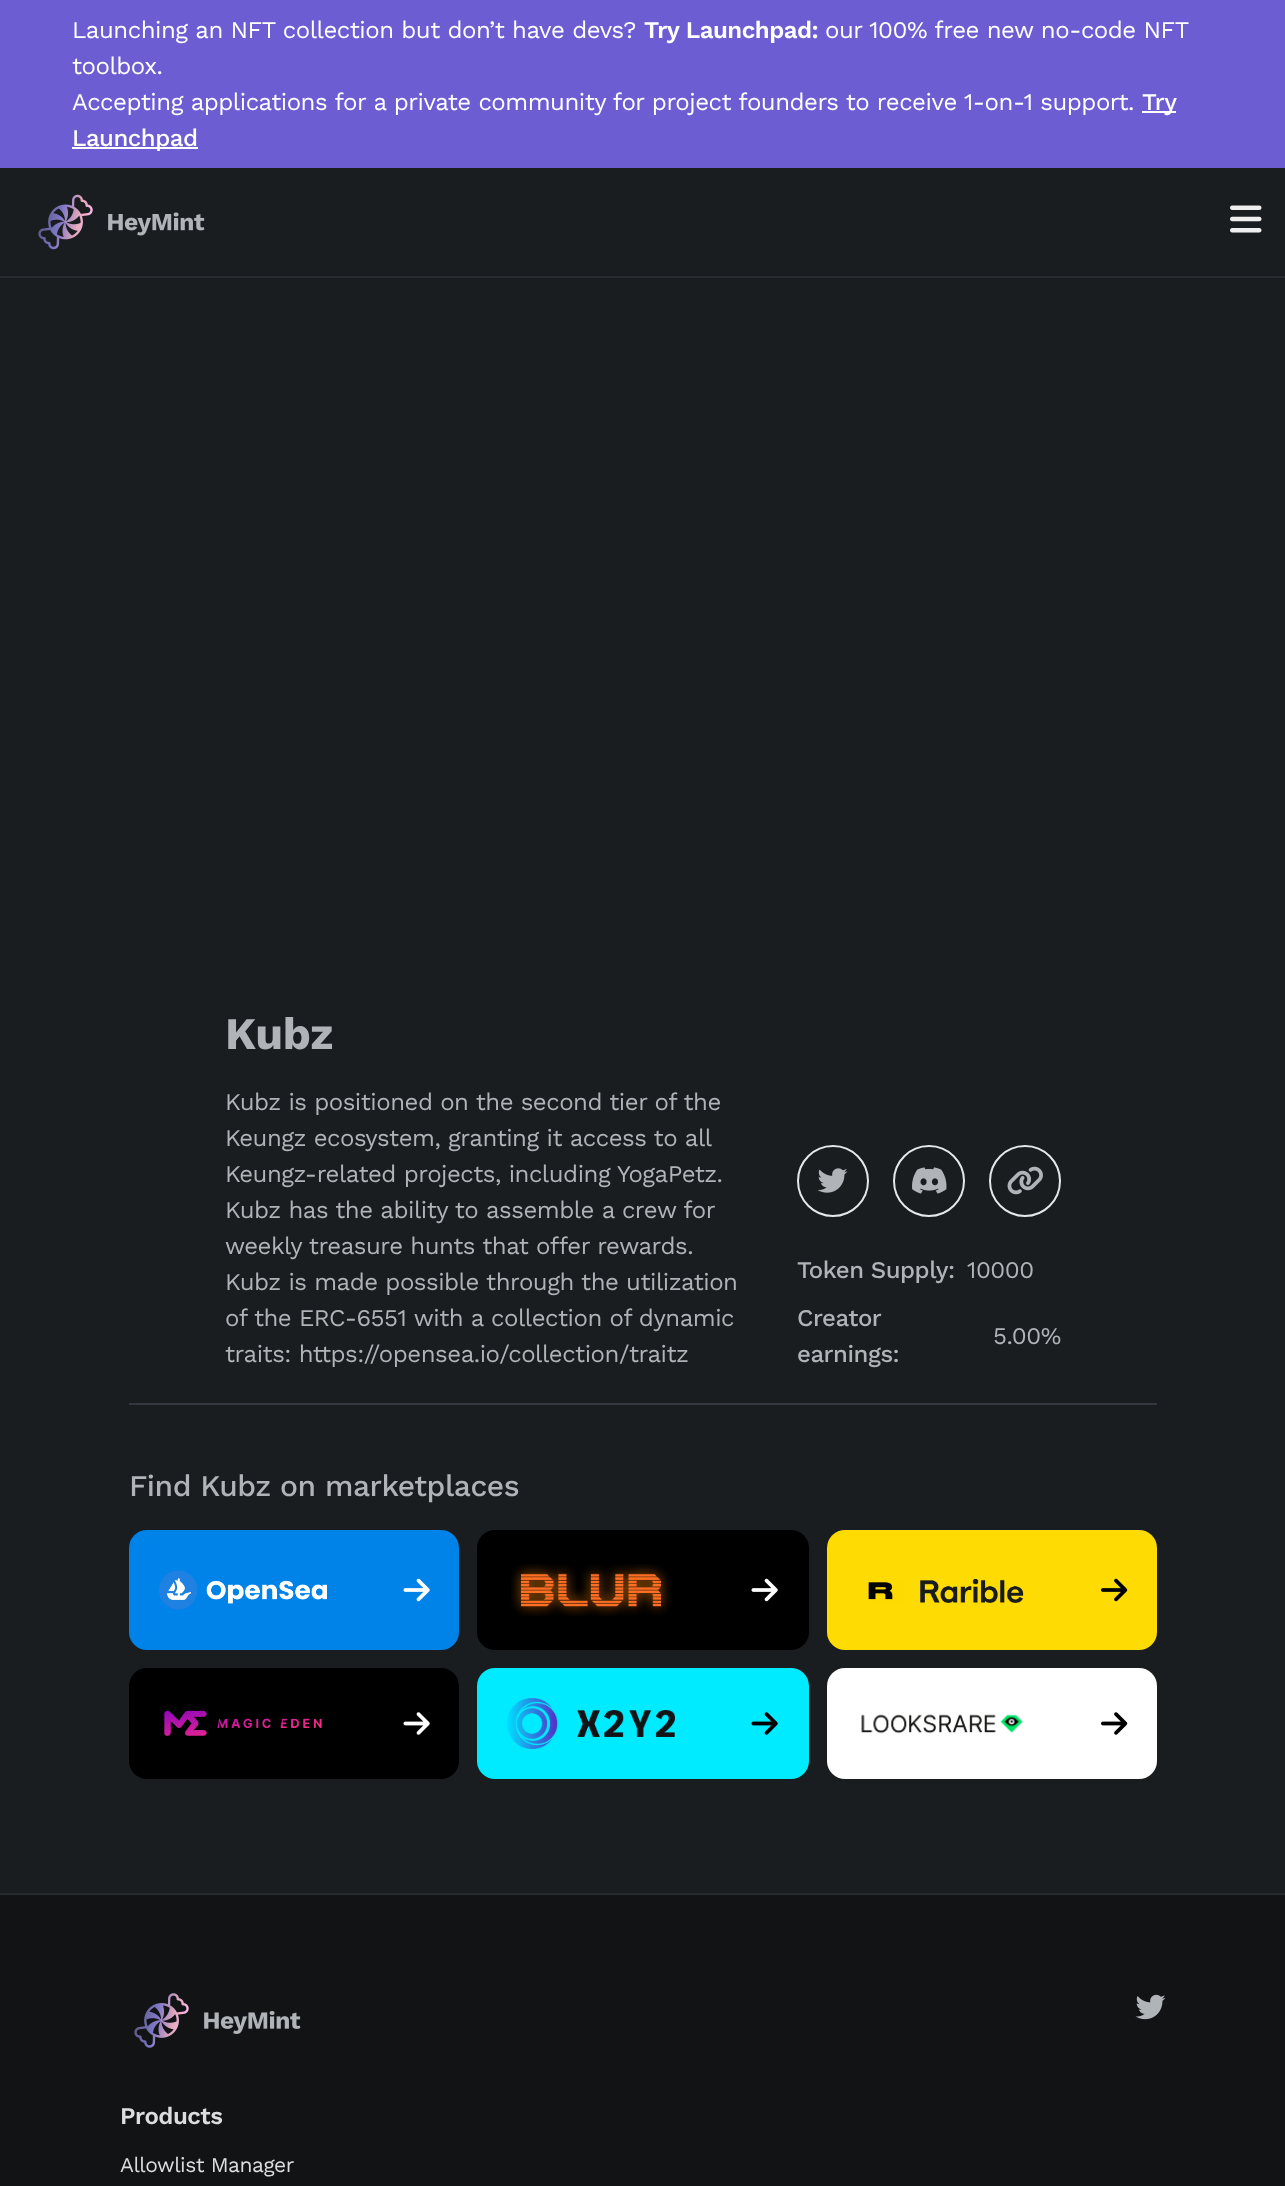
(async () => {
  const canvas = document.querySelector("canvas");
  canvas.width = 1285;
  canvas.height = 2186;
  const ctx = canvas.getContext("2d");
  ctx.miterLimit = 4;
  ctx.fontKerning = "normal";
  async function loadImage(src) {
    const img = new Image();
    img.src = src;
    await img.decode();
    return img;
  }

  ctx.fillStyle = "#1a1d1f";
  ctx.fillRect(0, 0, 1285, 2186);
  for (const [x, y, w, h, color] of [
    [0, 0, 1285, 168, "#6c5dd3"],
    [1142, 111, 34, 2, "#ffffff"],
    [72, 147, 126, 2, "#ffffff"],
    [0, 276, 1285, 2, "#272b30"],
  ]) {
    ctx.fillStyle = color;
    ctx.fillRect(x, y, w, h);
  }
  ctx.drawImage(await loadImage("img/1.png"), 38, 194, 167, 56);
  ctx.drawImage(await loadImage("img/2.png"), 1230, 205, 32, 28);
  ctx.beginPath();
  ctx.arc(833, 1181, 35, 0, Math.PI * 2);
  ctx.strokeStyle = "#e5e7eb";
  ctx.lineWidth = 2;
  ctx.stroke();
  ctx.drawImage(await loadImage("img/3.png"), 817, 1168, 31, 25);
  ctx.beginPath();
  ctx.arc(929, 1181, 35, 0, Math.PI * 2);
  ctx.stroke();
  ctx.drawImage(await loadImage("img/4.png"), 912, 1167, 35, 27);
  ctx.beginPath();
  ctx.arc(1025, 1181, 35, 0, Math.PI * 2);
  ctx.stroke();
  ctx.drawImage(await loadImage("img/5.png"), 1007, 1166, 36, 29);
  ctx.fillStyle = "#33383f";
  ctx.fillRect(129, 1403, 1028, 2);
  ctx.fillStyle = "#0083e9";
  ctx.beginPath();
  ctx.roundRect(129, 1530, 330, 120, 18);
  ctx.fill();
  ctx.drawImage(await loadImage("img/6.png"), 159, 1570, 168, 40);
  ctx.drawImage(await loadImage("img/7.png"), 403, 1578, 27, 24);
  ctx.fillStyle = "#000000";
  ctx.beginPath();
  ctx.roundRect(477, 1530, 332, 120, 18);
  ctx.fill();
  ctx.drawImage(await loadImage("img/8.png"), 511, 1564, 160, 52);
  ctx.drawImage(await loadImage("img/9.png"), 751, 1578, 27, 24);
  ctx.fillStyle = "#fedb02";
  ctx.beginPath();
  ctx.roundRect(827, 1530, 330, 120, 18);
  ctx.fill();
  ctx.drawImage(await loadImage("img/10.png"), 868, 1578, 156, 25);
  ctx.drawImage(await loadImage("img/11.png"), 1101, 1578, 27, 24);
  ctx.fillStyle = "#000000";
  ctx.beginPath();
  ctx.roundRect(129, 1668, 330, 111, 18);
  ctx.fill();
  ctx.drawImage(await loadImage("img/12.png"), 164, 1710, 158, 26);
  ctx.drawImage(await loadImage("img/13.png"), 403, 1712, 27, 23);
  ctx.fillStyle = "#00ebff";
  ctx.beginPath();
  ctx.roundRect(477, 1668, 332, 111, 18);
  ctx.fill();
  ctx.drawImage(await loadImage("img/14.png"), 507, 1698, 168, 51);
  ctx.drawImage(await loadImage("img/15.png"), 751, 1712, 27, 23);
  ctx.fillStyle = "#ffffff";
  ctx.beginPath();
  ctx.roundRect(827, 1668, 330, 111, 18);
  ctx.fill();
  ctx.drawImage(await loadImage("img/16.png"), 861, 1714, 162, 20);
  ctx.drawImage(await loadImage("img/17.png"), 1101, 1712, 27, 23);
  ctx.fillStyle = "#111315";
  ctx.fillRect(0, 1895, 1285, 291);
  ctx.fillStyle = "#272b30";
  ctx.fillRect(0, 1893, 1285, 2);
  ctx.drawImage(await loadImage("img/18.png"), 1135, 1994, 31, 26);
  ctx.drawImage(await loadImage("img/19.png"), 134, 1993, 167, 55);
  ctx.letterSpacing = "-0.48px";
  ctx.font = "24px Work Sans";
  ctx.fillStyle = "#ffffff";
  ctx.fillText("Launching an NFT collection but don’t have devs?", 72, 38);
  ctx.font = "600 24px Work Sans";
  ctx.fillText("Try Launchpad:", 644, 38);
  ctx.font = "24px Work Sans";
  for (const [text, x, y] of [
    ["our 100% free new no-code NFT", 825, 38],
    ["toolbox.", 72, 74],
    ["Accepting applications for a private community for project founders to receive 1-on-1 support.", 72, 110],
  ]) {
    ctx.fillText(text, x, y);
  }
  ctx.font = "500 24px Work Sans";
  ctx.fillText("Try", 1142, 110);
  ctx.fillText("Launchpad", 72, 146);
  ctx.font = "bold 45px Work Sans";
  ctx.fillStyle = "#b0b3b8";
  ctx.fillText("Kubz", 225, 1049);
  ctx.font = "24px Work Sans";
  for (const [text, x, y] of [
    ["Kubz is positioned on the second tier of the", 225, 1110],
    ["Keungz ecosystem, granting it access to all", 225, 1146],
    ["Keungz-related projects, including YogaPetz.", 225, 1182],
    ["Kubz has the ability to assemble a crew for", 225, 1218],
    ["weekly treasure hunts that offer rewards.", 225, 1254],
    ["Kubz is made possible through the utilization", 225, 1290],
    ["of the ERC-6551 with a collection of dynamic", 225, 1326],
    ["traits: https://opensea.io/collection/traitz", 225, 1362],
  ]) {
    ctx.fillText(text, x, y);
  }
  ctx.font = "500 24px Work Sans";
  ctx.fillText("Token Supply:", 797, 1278);
  ctx.font = "24px Work Sans";
  ctx.fillText("10000", 967, 1278);
  ctx.font = "500 24px Work Sans";
  ctx.fillText("Creator", 797, 1326);
  ctx.fillText("earnings:", 797, 1362);
  ctx.font = "24px Work Sans";
  ctx.fillText("5.00%", 993, 1344);
  ctx.font = "500 30px Work Sans";
  ctx.fillText("Find Kubz on marketplaces", 129, 1496);
  ctx.font = "600 24px Work Sans";
  ctx.fillStyle = "#dddddd";
  ctx.fillText("Products", 120, 2124);
  ctx.font = "21px Work Sans";
  ctx.fillText("Allowlist Manager", 120, 2172);
})();
